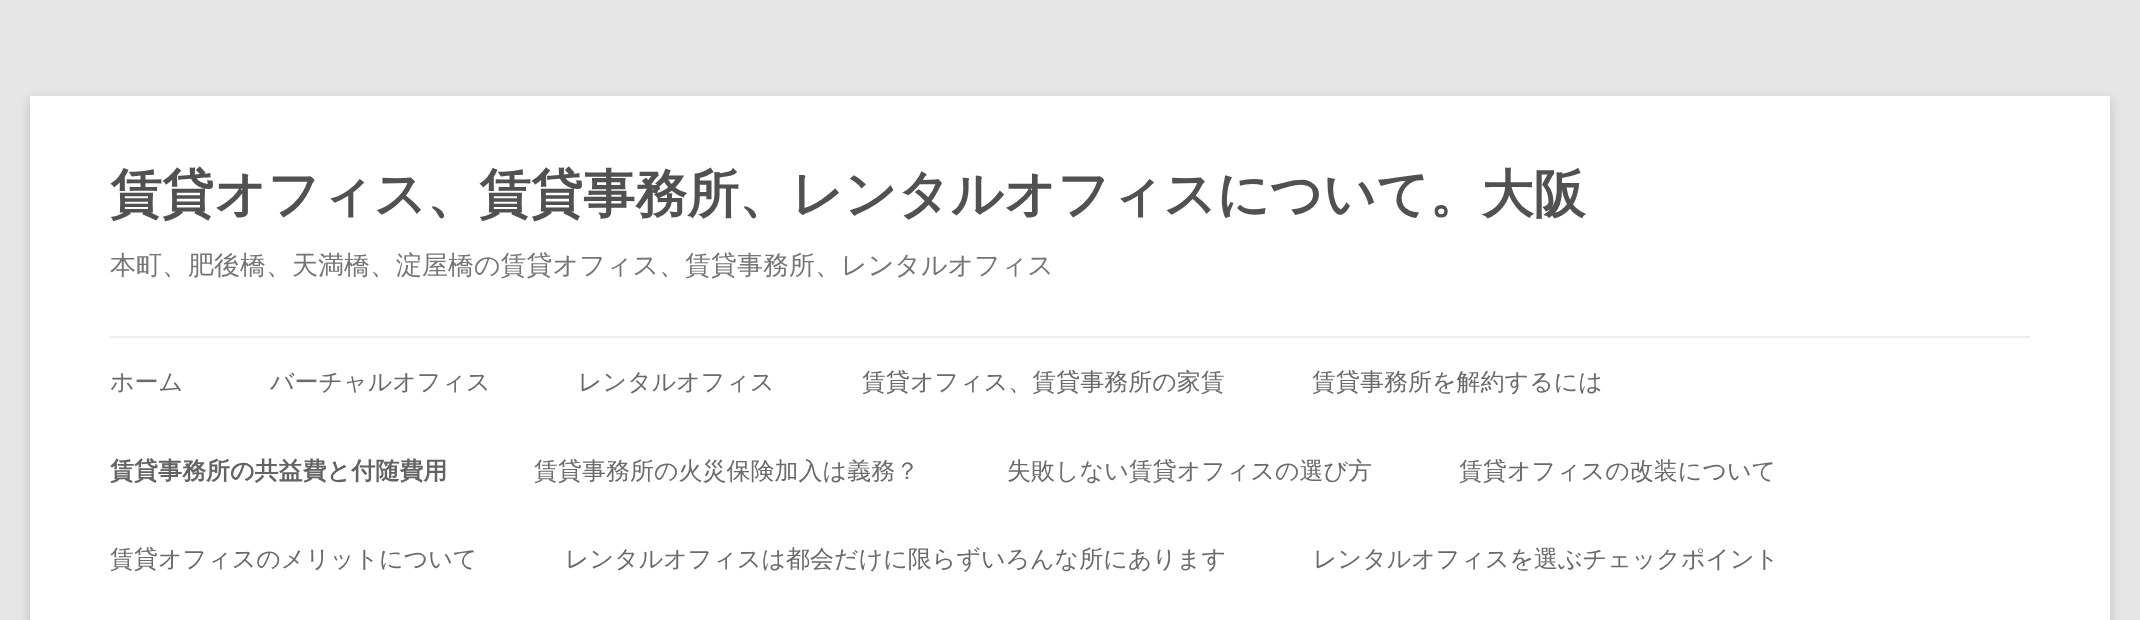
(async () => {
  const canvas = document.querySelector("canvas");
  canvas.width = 2140;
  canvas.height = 620;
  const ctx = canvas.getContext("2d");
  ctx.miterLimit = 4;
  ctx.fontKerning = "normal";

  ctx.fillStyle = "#e6e6e6";
  ctx.fillRect(0, 0, 2140, 620);
  ctx.fillStyle = "rgba(100, 100, 100, 0.3)";
  ctx.filter = "blur(6px)";
  ctx.beginPath();
  ctx.rect(30, 100, 2080, 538);
  ctx.fill();
  ctx.filter = "none";
  ctx.fillStyle = "#ffffff";
  ctx.fillRect(30, 96, 2080, 524);
  ctx.fillStyle = "#ededed";
  ctx.fillRect(110, 336, 1920, 2);
  ctx.font = "bold 52px WenQuanYi Zen Hei";
  ctx.fillStyle = "#515151";
  ctx.fillText("賃貸オフィス、賃貸事務所、レンタルオフィスについて。大阪", 110, 212);
  ctx.font = "500 26px WenQuanYi Zen Hei";
  ctx.fillStyle = "#757575";
  ctx.fillText("本町、肥後橋、天満橋、淀屋橋の賃貸オフィス、賃貸事務所、レンタルオフィス", 110, 274);
  ctx.font = "500 24px WenQuanYi Zen Hei";
  ctx.fillStyle = "#6a6a6a";
  for (const [text, x, y] of [
    ["ホーム", 110, 390],
    ["バーチャルオフィス", 270, 390],
    ["レンタルオフィス", 578, 390],
    ["賃貸オフィス、賃貸事務所の家賃", 862, 390],
    ["賃貸事務所を解約するには", 1312, 390],
  ]) {
    ctx.fillText(text, x, y);
  }
  ctx.font = "bold 24px WenQuanYi Zen Hei";
  ctx.fillStyle = "#636363";
  ctx.fillText("賃貸事務所の共益費と付随費用", 110, 479);
  ctx.font = "500 24px WenQuanYi Zen Hei";
  ctx.fillStyle = "#6a6a6a";
  for (const [text, x, y] of [
    ["賃貸事務所の火災保険加入は義務？", 534, 479],
    ["失敗しない賃貸オフィスの選び方", 1007, 479],
    ["賃貸オフィスの改装について", 1459, 479],
    ["賃貸オフィスのメリットについて", 110, 567],
    ["レンタルオフィスは都会だけに限らずいろんな所にあります", 565, 567],
    ["レンタルオフィスを選ぶチェックポイント", 1313, 567],
  ]) {
    ctx.fillText(text, x, y);
  }
})();
